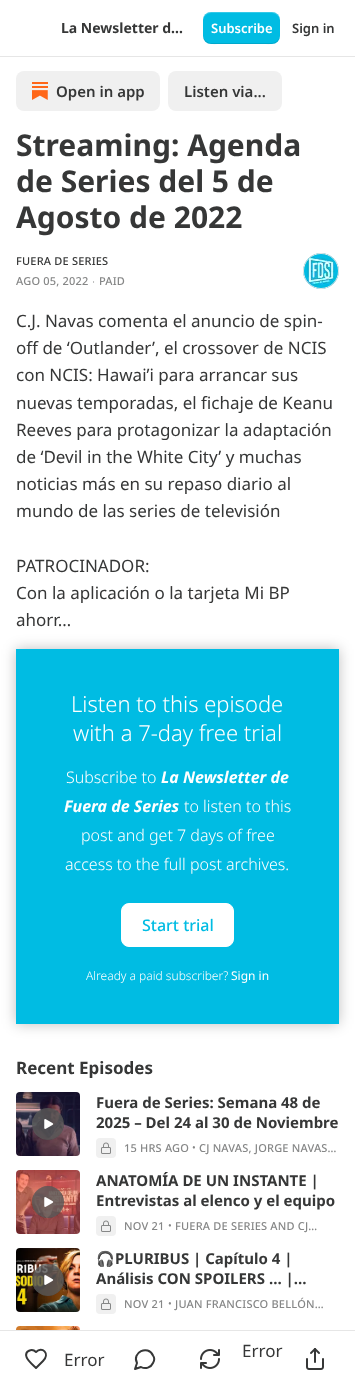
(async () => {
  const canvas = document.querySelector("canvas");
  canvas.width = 355;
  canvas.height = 1387;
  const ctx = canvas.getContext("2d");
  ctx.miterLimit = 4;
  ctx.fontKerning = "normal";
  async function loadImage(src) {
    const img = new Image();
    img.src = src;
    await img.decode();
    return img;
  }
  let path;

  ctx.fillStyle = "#ffffff";
  ctx.fillRect(0, 0, 355, 1387);
  ctx.fillStyle = "#e6e6e6";
  ctx.fillRect(0, 56, 355, 1);
  ctx.fillStyle = "#00bce3";
  ctx.beginPath();
  ctx.roundRect(203, 12, 77, 32, 8);
  ctx.fill();
  ctx.fillStyle = "rgba(0, 0, 0, 0.1)";
  path = new Path2D("M203 35C203 46 213 44 221 44H262C270 44 280 46 280 35C280 39 276 43 272 43H211C207 43 203 39 203 35Z");
  ctx.fill(path);
  ctx.fillStyle = "rgba(255, 255, 255, 0.2)";
  path = new Path2D("M211 13H272C276 13 280 17 280 21C280 10 270 12 262 12H221C213 12 203 10 203 21C203 17 207 13 211 13Z");
  ctx.fill(path);
  ctx.fillStyle = "#f0f0f0";
  ctx.beginPath();
  ctx.roundRect(16, 71, 144, 40, 8);
  ctx.fill();
  ctx.drawImage(await loadImage("img/1.png"), 32, 82, 16, 18);
  ctx.beginPath();
  ctx.roundRect(168, 71, 114, 40, 8);
  ctx.fill();
  ctx.beginPath();
  ctx.arc(321, 271, 17.5, 0, Math.PI * 2);
  ctx.strokeStyle = "#e6e6e6";
  ctx.stroke();
  ctx.drawImage(await loadImage("img/2.png"), 303, 253, 36, 36);
  ctx.beginPath();
  ctx.arc(321, 271, 17.5, 0, Math.PI * 2);
  ctx.stroke();
  ctx.fillStyle = "#00bce3";
  ctx.fillRect(16, 649, 323, 375);
  ctx.fillStyle = "#ffffff";
  ctx.beginPath();
  ctx.roundRect(121.5, 903.5, 112, 43, 7.5);
  ctx.fill();
  ctx.strokeStyle = "#ffffff";
  ctx.stroke();
  ctx.save();
  path = new Path2D("M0 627H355V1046H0ZM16 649H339V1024H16Z");
  ctx.clip(path, "evenodd");
  ctx.fillStyle = "rgba(0, 0, 0, 0.25)";
  ctx.filter = "blur(7px)";
  ctx.beginPath();
  ctx.rect(16, 649, 323, 375);
  ctx.fill();
  ctx.filter = "none";
  ctx.restore();
  ctx.drawImage(await loadImage("img/3.png"), 16, 1092, 64, 64);
  ctx.fillStyle = "rgba(40, 40, 40, 0.75)";
  ctx.beginPath();
  ctx.arc(48, 1124, 16, 0, Math.PI * 2);
  ctx.fill();
  ctx.fillStyle = "rgba(0, 0, 0, 0.1)";
  path = new Path2D("M48 1108C44.5 1108 41 1109 38 1111.5C26.5 1120.5 32.5 1140 48 1140C63.5 1140 69.5 1120.5 58 1111.5C55 1109 51.5 1108 48 1108Z");
  ctx.fill(path);
  ctx.fillStyle = "rgba(255, 255, 255, 0.2)";
  path = new Path2D("M48 1108C32.5 1108 26.5 1127.5 38 1136.5C41 1139 44.5 1140 48 1140C51.5 1140 55 1139 58 1136.5C69.5 1127.5 63.5 1108 48 1108Z");
  ctx.fill(path);
  ctx.drawImage(await loadImage("img/4.png"), 44, 1119, 10, 10);
  ctx.fillStyle = "#f0f0f0";
  ctx.beginPath();
  ctx.roundRect(96, 1138, 20, 20, 4);
  ctx.fill();
  ctx.drawImage(await loadImage("img/5.png"), 101, 1142, 10, 12);
  ctx.drawImage(await loadImage("img/6.png"), 16, 1170, 64, 64);
  ctx.fillStyle = "rgba(40, 40, 40, 0.75)";
  ctx.beginPath();
  ctx.arc(48, 1202, 16, 0, Math.PI * 2);
  ctx.fill();
  ctx.fillStyle = "rgba(0, 0, 0, 0.1)";
  path = new Path2D("M48 1186C44.5 1186 41 1187 38 1189.5C26.5 1198.5 32.5 1218 48 1218C63.5 1218 69.5 1198.5 58 1189.5C55 1187 51.5 1186 48 1186Z");
  ctx.fill(path);
  ctx.fillStyle = "rgba(255, 255, 255, 0.2)";
  path = new Path2D("M48 1186C32.5 1186 26.5 1205.5 38 1214.5C41 1217 44.5 1218 48 1218C51.5 1218 55 1217 58 1214.5C69.5 1205.5 63.5 1186 48 1186Z");
  ctx.fill(path);
  ctx.drawImage(await loadImage("img/7.png"), 44, 1197, 10, 10);
  ctx.fillStyle = "#f0f0f0";
  ctx.beginPath();
  ctx.roundRect(96, 1216, 20, 20, 4);
  ctx.fill();
  ctx.drawImage(await loadImage("img/5.png"), 101, 1220, 10, 12);
  ctx.drawImage(await loadImage("img/8.png"), 16, 1248, 64, 64);
  ctx.fillStyle = "rgba(40, 40, 40, 0.75)";
  ctx.beginPath();
  ctx.arc(48, 1280, 16, 0, Math.PI * 2);
  ctx.fill();
  ctx.fillStyle = "rgba(0, 0, 0, 0.1)";
  path = new Path2D("M48 1264C44.5 1264 41 1265 38 1267.5C26.5 1276.5 32.5 1296 48 1296C63.5 1296 69.5 1276.5 58 1267.5C55 1265 51.5 1264 48 1264Z");
  ctx.fill(path);
  ctx.fillStyle = "rgba(255, 255, 255, 0.2)";
  path = new Path2D("M48 1264C32.5 1264 26.5 1283.5 38 1292.5C41 1295 44.5 1296 48 1296C51.5 1296 55 1295 58 1292.5C69.5 1283.5 63.5 1264 48 1264Z");
  ctx.fill(path);
  ctx.drawImage(await loadImage("img/9.png"), 44, 1275, 10, 10);
  ctx.fillStyle = "#f0f0f0";
  ctx.beginPath();
  ctx.roundRect(96, 1294, 20, 20, 4);
  ctx.fill();
  ctx.drawImage(await loadImage("img/5.png"), 101, 1298, 10, 12);
  ctx.drawImage(await loadImage("img/10.png"), 16, 1326, 64, 4);
  ctx.fillStyle = "#e6e6e6";
  ctx.fillRect(0, 1330, 355, 1);
  path = new Path2D("M43 1361C50.5 1353.5 42 1346 36 1352C32 1348 24.5 1351 26.5 1357C27.5 1360.5 33.5 1365.5 36 1368Z");
  ctx.strokeStyle = "#363737";
  ctx.lineWidth = 2;
  ctx.lineCap = "round";
  ctx.lineJoin = "round";
  ctx.stroke(path);
  path = new Path2D("M141 1367C145.5 1369.5 151 1367.5 153 1363C154.5 1360.5 154.5 1357.5 153 1355.5C148 1344.5 131.5 1352.5 137 1363L135 1369Z");
  ctx.stroke(path);
  ctx.drawImage(await loadImage("img/11.png"), 200, 1349, 20, 20);
  ctx.drawImage(await loadImage("img/12.png"), 306, 1348, 18, 22);
  ctx.font = "bold 14px Noto Sans";
  ctx.fillStyle = "#363737";
  ctx.fillText("La Newsletter d…", 61, 33);
  ctx.font = "600 13px Noto Sans";
  ctx.fillStyle = "#ffffff";
  ctx.fillText("Subscribe", 211, 33);
  ctx.fillStyle = "#363737";
  ctx.fillText("Sign in", 292, 33);
  ctx.font = "600 15px Noto Sans";
  ctx.fillText("Open in app", 56, 97);
  ctx.fillText("Listen via...", 184, 97);
  ctx.font = "bold 30px Noto Sans";
  for (const [text, x, y] of [
    ["Streaming: Agenda", 16, 156],
    ["de Series del 5 de", 16, 192],
    ["Agosto de 2022", 16, 228],
  ]) {
    ctx.fillText(text, x, y);
  }
  ctx.letterSpacing = "0.2px";
  ctx.font = "500 11px Noto Sans";
  ctx.fillText("FUERA DE SERIES", 16, 265);
  ctx.fillStyle = "#868787";
  ctx.fillText("AGO 05, 2022", 16, 285);
  ctx.font = "11px Liberation Sans";
  ctx.fillText("∙", 92, 285);
  ctx.font = "500 11px Noto Sans";
  ctx.fillText("PAID", 99, 285);
  ctx.letterSpacing = "0px";
  ctx.font = "17px Noto Sans";
  ctx.fillStyle = "#363737";
  for (const [text, x, y] of [
    ["C.J. Navas comenta el anuncio de spin-", 16, 327],
    ["off de ‘Outlander’, el crossover de NCIS", 16, 354],
    ["con NCIS: Hawai’i para arrancar sus", 16, 381],
    ["nuevas temporadas, el fichaje de Keanu", 16, 409],
    ["Reeves para protagonizar la adaptación", 16, 436],
    ["de ‘Devil in the White City’ y muchas", 16, 463],
    ["noticias más en su repaso diario al", 16, 490],
    ["mundo de las series de televisión", 16, 517],
    ["PATROCINADOR:", 16, 572],
    ["Con la aplicación o la tarjeta Mi BP", 16, 599],
    ["ahorr…", 16, 626],
  ]) {
    ctx.fillText(text, x, y);
  }
  ctx.font = "300 22px Noto Sans";
  ctx.fillStyle = "#ffffff";
  ctx.fillText("Listen to this episode", 71, 712);
  ctx.fillText("with a 7-day free trial", 73, 741);
  ctx.font = "300 16px Noto Sans";
  ctx.fillText("Subscribe to", 66, 783);
  ctx.font = "italic bold 16px Noto Sans";
  ctx.fillText("La Newsletter de", 161, 783);
  ctx.fillText("Fuera de Series", 64, 812);
  ctx.font = "300 16px Noto Sans";
  for (const [text, x, y] of [
    ["to listen to this", 184, 812],
    ["post and get 7 days of free", 81, 841],
    ["access to the full post archives.", 65, 870],
  ]) {
    ctx.fillText(text, x, y);
  }
  ctx.font = "500 16px Noto Sans";
  ctx.fillStyle = "#00bce3";
  ctx.fillText("Start trial", 142, 931);
  ctx.font = "300 12px Noto Sans";
  ctx.fillStyle = "#ffffff";
  ctx.fillText("Already a paid subscriber?", 86, 980);
  ctx.font = "12px Noto Sans";
  ctx.fillText("Sign in", 231, 980);
  ctx.font = "bold 17px Noto Sans";
  ctx.fillStyle = "#363737";
  ctx.fillText("Recent Episodes", 16, 1074);
  ctx.font = "bold 15px Noto Sans";
  ctx.fillText("Fuera de Series: Semana 48 de", 96, 1108);
  ctx.fillText("2025 – Del 24 al 30 de Noviembre", 96, 1128);
  ctx.letterSpacing = "0.2px";
  ctx.font = "500 11px Noto Sans";
  ctx.fillStyle = "#868787";
  ctx.fillText("15 HRS AGO", 124, 1152);
  ctx.font = "10px Noto Sans";
  ctx.fillText("•", 192, 1151);
  ctx.font = "500 11px Noto Sans";
  ctx.fillText("CJ NAVAS, JORGE NAVAS…", 199, 1152);
  ctx.letterSpacing = "0px";
  ctx.font = "bold 15px Noto Sans";
  ctx.fillStyle = "#363737";
  ctx.fillText("ANATOMÍA DE UN INSTANTE |", 96, 1186);
  ctx.fillText("Entrevistas al elenco y el equipo", 96, 1206);
  ctx.letterSpacing = "0.2px";
  ctx.font = "500 11px Noto Sans";
  ctx.fillStyle = "#868787";
  ctx.fillText("NOV 21", 124, 1230);
  ctx.font = "10px Noto Sans";
  ctx.fillText("•", 168, 1229);
  ctx.font = "500 11px Noto Sans";
  ctx.fillText("FUERA DE SERIES AND CJ…", 175, 1230);
  ctx.letterSpacing = "0px";
  ctx.font = "bold 15px Noto Color Emoji";
  ctx.fillStyle = "#363737";
  ctx.fillText("🎧", 96, 1264);
  ctx.font = "bold 15px Noto Sans";
  ctx.fillText("PLURIBUS | Capítulo 4 |", 115, 1264);
  ctx.fillText("Análisis CON SPOILERS … |…", 96, 1284);
  ctx.letterSpacing = "0.2px";
  ctx.font = "500 11px Noto Sans";
  ctx.fillStyle = "#868787";
  ctx.fillText("NOV 21", 124, 1308);
  ctx.font = "10px Noto Sans";
  ctx.fillText("•", 168, 1307);
  ctx.font = "500 11px Noto Sans";
  ctx.fillText("JUAN FRANCISCO BELLÓN…", 175, 1308);
  ctx.letterSpacing = "0px";
  ctx.font = "17px Noto Sans";
  ctx.fillStyle = "#363737";
  ctx.fillText("Error", 64, 1366);
  ctx.fillText("Error", 242, 1357);
})();
